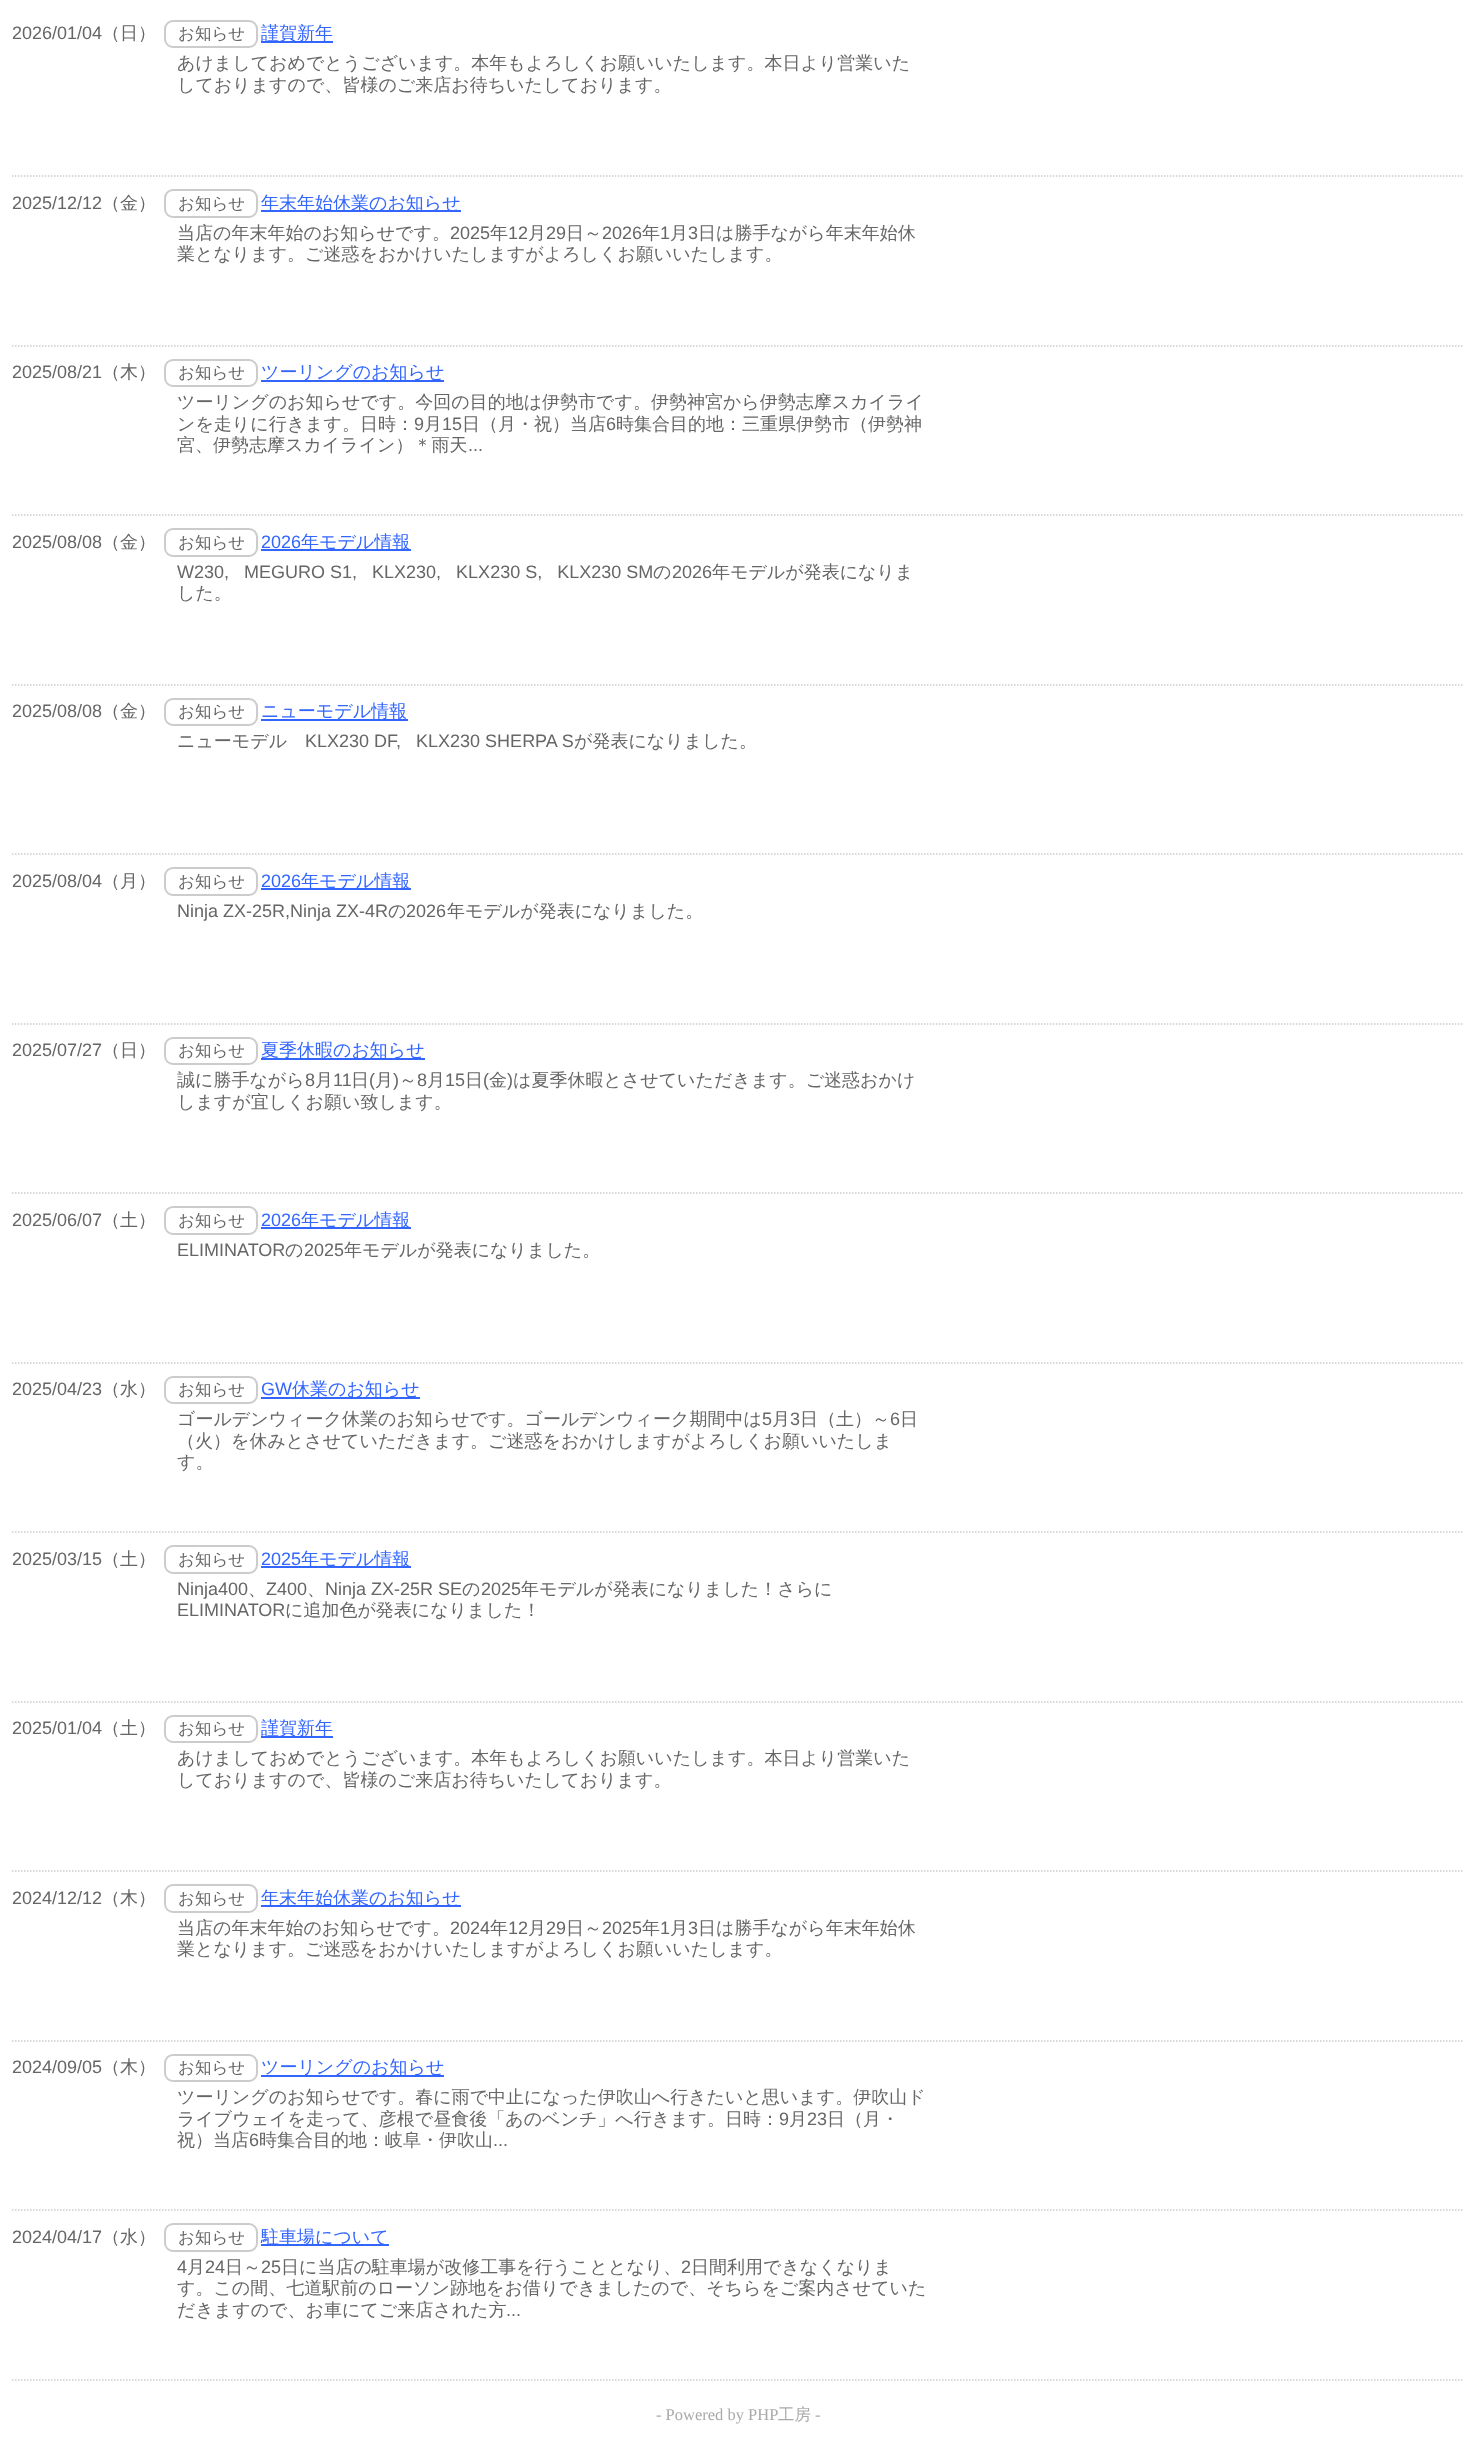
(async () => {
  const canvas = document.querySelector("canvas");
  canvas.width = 1476;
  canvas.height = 2456;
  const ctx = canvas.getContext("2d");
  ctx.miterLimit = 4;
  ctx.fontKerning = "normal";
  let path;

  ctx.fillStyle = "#ffffff";
  ctx.fillRect(0, 0, 1476, 2456);
  path = new Path2D("M12 176H1464");
  ctx.strokeStyle = "#cccccc";
  ctx.lineWidth = 1.5;
  ctx.setLineDash([1.5, 1.5]);
  ctx.stroke(path);
  ctx.beginPath();
  ctx.roundRect(165, 21, 92, 26, 8);
  ctx.lineWidth = 2;
  ctx.setLineDash([]);
  ctx.stroke();
  ctx.fillStyle = "#3366ff";
  ctx.fillRect(261, 41, 72, 2);
  path = new Path2D("M12 346H1464");
  ctx.lineWidth = 1.5;
  ctx.setLineDash([1.5, 1.5]);
  ctx.stroke(path);
  ctx.beginPath();
  ctx.roundRect(165, 190, 92, 27, 8);
  ctx.lineWidth = 2;
  ctx.setLineDash([]);
  ctx.stroke();
  ctx.fillRect(261, 210, 200, 2);
  path = new Path2D("M12 515H1464");
  ctx.lineWidth = 1.5;
  ctx.setLineDash([1.5, 1.5]);
  ctx.stroke(path);
  ctx.beginPath();
  ctx.roundRect(165, 360, 92, 26, 8);
  ctx.lineWidth = 2;
  ctx.setLineDash([]);
  ctx.stroke();
  ctx.fillRect(261, 380, 183, 2);
  path = new Path2D("M12 685H1464");
  ctx.lineWidth = 1.5;
  ctx.setLineDash([1.5, 1.5]);
  ctx.stroke(path);
  ctx.beginPath();
  ctx.roundRect(165, 529, 92, 27, 8);
  ctx.lineWidth = 2;
  ctx.setLineDash([]);
  ctx.stroke();
  ctx.fillRect(261, 549, 150, 2);
  path = new Path2D("M12 854H1464");
  ctx.lineWidth = 1.5;
  ctx.setLineDash([1.5, 1.5]);
  ctx.stroke(path);
  ctx.beginPath();
  ctx.roundRect(165, 699, 92, 26, 8);
  ctx.lineWidth = 2;
  ctx.setLineDash([]);
  ctx.stroke();
  ctx.fillRect(261, 719, 147, 2);
  path = new Path2D("M12 1024H1464");
  ctx.lineWidth = 1.5;
  ctx.setLineDash([1.5, 1.5]);
  ctx.stroke(path);
  ctx.beginPath();
  ctx.roundRect(165, 868, 92, 27, 8);
  ctx.lineWidth = 2;
  ctx.setLineDash([]);
  ctx.stroke();
  ctx.fillRect(261, 888, 150, 2);
  path = new Path2D("M12 1193H1464");
  ctx.lineWidth = 1.5;
  ctx.setLineDash([1.5, 1.5]);
  ctx.stroke(path);
  ctx.beginPath();
  ctx.roundRect(165, 1038, 92, 26, 8);
  ctx.lineWidth = 2;
  ctx.setLineDash([]);
  ctx.stroke();
  ctx.fillRect(261, 1058, 164, 2);
  path = new Path2D("M12 1363H1464");
  ctx.lineWidth = 1.5;
  ctx.setLineDash([1.5, 1.5]);
  ctx.stroke(path);
  ctx.beginPath();
  ctx.roundRect(165, 1207, 92, 27, 8);
  ctx.lineWidth = 2;
  ctx.setLineDash([]);
  ctx.stroke();
  ctx.fillRect(261, 1227, 150, 2);
  path = new Path2D("M12 1532H1464");
  ctx.lineWidth = 1.5;
  ctx.setLineDash([1.5, 1.5]);
  ctx.stroke(path);
  ctx.beginPath();
  ctx.roundRect(165, 1377, 92, 26, 8);
  ctx.lineWidth = 2;
  ctx.setLineDash([]);
  ctx.stroke();
  ctx.fillRect(261, 1397, 159, 2);
  path = new Path2D("M12 1702H1464");
  ctx.lineWidth = 1.5;
  ctx.setLineDash([1.5, 1.5]);
  ctx.stroke(path);
  ctx.beginPath();
  ctx.roundRect(165, 1546, 92, 27, 8);
  ctx.lineWidth = 2;
  ctx.setLineDash([]);
  ctx.stroke();
  ctx.fillRect(261, 1566, 150, 2);
  path = new Path2D("M12 1871H1464");
  ctx.lineWidth = 1.5;
  ctx.setLineDash([1.5, 1.5]);
  ctx.stroke(path);
  ctx.beginPath();
  ctx.roundRect(165, 1716, 92, 26, 8);
  ctx.lineWidth = 2;
  ctx.setLineDash([]);
  ctx.stroke();
  ctx.fillRect(261, 1736, 72, 2);
  path = new Path2D("M12 2041H1464");
  ctx.lineWidth = 1.5;
  ctx.setLineDash([1.5, 1.5]);
  ctx.stroke(path);
  ctx.beginPath();
  ctx.roundRect(165, 1885, 92, 27, 8);
  ctx.lineWidth = 2;
  ctx.setLineDash([]);
  ctx.stroke();
  ctx.fillRect(261, 1905, 200, 2);
  path = new Path2D("M12 2210H1464");
  ctx.lineWidth = 1.5;
  ctx.setLineDash([1.5, 1.5]);
  ctx.stroke(path);
  ctx.beginPath();
  ctx.roundRect(165, 2055, 92, 26, 8);
  ctx.lineWidth = 2;
  ctx.setLineDash([]);
  ctx.stroke();
  ctx.fillRect(261, 2075, 183, 2);
  path = new Path2D("M12 2380H1464");
  ctx.lineWidth = 1.5;
  ctx.setLineDash([1.5, 1.5]);
  ctx.stroke(path);
  ctx.beginPath();
  ctx.roundRect(165, 2224, 92, 27, 8);
  ctx.lineWidth = 2;
  ctx.setLineDash([]);
  ctx.stroke();
  ctx.fillRect(261, 2244, 128, 2);
  ctx.font = "18px Liberation Sans";
  ctx.fillStyle = "#666666";
  ctx.fillText("2026/01/04", 12, 39);
  ctx.font = "500 18px WenQuanYi Zen Hei";
  ctx.fillText("（日）", 102, 39);
  ctx.font = "500 16.5px WenQuanYi Zen Hei";
  ctx.fillText("お知らせ", 178, 39);
  ctx.font = "500 18px WenQuanYi Zen Hei";
  ctx.fillStyle = "#3366ff";
  ctx.fillText("謹賀新年", 261, 39);
  ctx.fillStyle = "#666666";
  ctx.fillText("あけましておめでとうございます。本年もよろしくお願いいたします。本日より営業いた", 177, 69);
  ctx.fillText("しておりますので、皆様のご来店お待ちいたしております。", 177, 91);
  ctx.font = "18px Liberation Sans";
  ctx.fillText("2025/12/12", 12, 209);
  ctx.font = "500 18px WenQuanYi Zen Hei";
  ctx.fillText("（金）", 102, 209);
  ctx.font = "500 16.5px WenQuanYi Zen Hei";
  ctx.fillText("お知らせ", 178, 209);
  ctx.font = "500 18px WenQuanYi Zen Hei";
  ctx.fillStyle = "#3366ff";
  ctx.fillText("年末年始休業のお知らせ", 261, 209);
  ctx.fillStyle = "#666666";
  ctx.fillText("当店の年末年始のお知らせです。", 177, 239);
  ctx.font = "18px Liberation Sans";
  ctx.fillText("2025", 450, 239);
  ctx.font = "500 18px WenQuanYi Zen Hei";
  ctx.fillText("年", 490, 239);
  ctx.font = "18px Liberation Sans";
  ctx.fillText("12", 508, 239);
  ctx.font = "500 18px WenQuanYi Zen Hei";
  ctx.fillText("月", 528, 239);
  ctx.font = "18px Liberation Sans";
  ctx.fillText("29", 546, 239);
  ctx.font = "500 18px WenQuanYi Zen Hei";
  ctx.fillText("日～", 566, 239);
  ctx.font = "18px Liberation Sans";
  ctx.fillText("2026", 602, 239);
  ctx.font = "500 18px WenQuanYi Zen Hei";
  ctx.fillText("年", 642, 239);
  ctx.font = "18px Liberation Sans";
  ctx.fillText("1", 660, 239);
  ctx.font = "500 18px WenQuanYi Zen Hei";
  ctx.fillText("月", 670, 239);
  ctx.font = "18px Liberation Sans";
  ctx.fillText("3", 688, 239);
  ctx.font = "500 18px WenQuanYi Zen Hei";
  ctx.fillText("日は勝手ながら年末年始休", 698, 239);
  ctx.fillText("業となります。ご迷惑をおかけいたしますがよろしくお願いいたします。", 177, 260);
  ctx.font = "18px Liberation Sans";
  ctx.fillText("2025/08/21", 12, 378);
  ctx.font = "500 18px WenQuanYi Zen Hei";
  ctx.fillText("（木）", 102, 378);
  ctx.font = "500 16.5px WenQuanYi Zen Hei";
  ctx.fillText("お知らせ", 178, 378);
  ctx.font = "500 18px WenQuanYi Zen Hei";
  ctx.fillStyle = "#3366ff";
  ctx.fillText("ツーリングのお知らせ", 261, 378);
  ctx.fillStyle = "#666666";
  ctx.fillText("ツーリングのお知らせです。今回の目的地は伊勢市です。伊勢神宮から伊勢志摩スカイライ", 177, 408);
  ctx.fillText("ンを走りに行きます。日時：", 177, 430);
  ctx.font = "18px Liberation Sans";
  ctx.fillText("9", 414, 430);
  ctx.font = "500 18px WenQuanYi Zen Hei";
  ctx.fillText("月", 424, 430);
  ctx.font = "18px Liberation Sans";
  ctx.fillText("15", 442, 430);
  ctx.font = "500 18px WenQuanYi Zen Hei";
  ctx.fillText("日（月・祝）当店", 462, 430);
  ctx.font = "18px Liberation Sans";
  ctx.fillText("6", 606, 430);
  ctx.font = "500 18px WenQuanYi Zen Hei";
  ctx.fillText("時集合目的地：三重県伊勢市（伊勢神", 616, 430);
  ctx.fillText("宮、伊勢志摩スカイライン）＊雨天", 177, 451);
  ctx.font = "18px Liberation Sans";
  ctx.fillText("...", 468, 451);
  ctx.fillText("2025/08/08", 12, 548);
  ctx.font = "500 18px WenQuanYi Zen Hei";
  ctx.fillText("（金）", 102, 548);
  ctx.font = "500 16.5px WenQuanYi Zen Hei";
  ctx.fillText("お知らせ", 178, 548);
  ctx.font = "18px Liberation Sans";
  ctx.fillStyle = "#3366ff";
  ctx.fillText("2026", 261, 548);
  ctx.font = "500 18px WenQuanYi Zen Hei";
  ctx.fillText("年モデル情報", 301, 548);
  ctx.font = "18px Liberation Sans";
  ctx.fillStyle = "#666666";
  ctx.fillText("W230,   MEGURO S1,   KLX230,   KLX230 S,   KLX230 SM", 177, 578);
  ctx.font = "500 18px WenQuanYi Zen Hei";
  ctx.fillText("の", 653, 578);
  ctx.font = "18px Liberation Sans";
  ctx.fillText("2026", 672, 578);
  ctx.font = "500 18px WenQuanYi Zen Hei";
  ctx.fillText("年モデルが発表になりま", 712, 578);
  ctx.fillText("した。", 177, 599);
  ctx.font = "18px Liberation Sans";
  ctx.fillText("2025/08/08", 12, 717);
  ctx.font = "500 18px WenQuanYi Zen Hei";
  ctx.fillText("（金）", 102, 717);
  ctx.font = "500 16.5px WenQuanYi Zen Hei";
  ctx.fillText("お知らせ", 178, 717);
  ctx.font = "500 18px WenQuanYi Zen Hei";
  ctx.fillStyle = "#3366ff";
  ctx.fillText("ニューモデル情報", 261, 717);
  ctx.fillStyle = "#666666";
  ctx.fillText("ニューモデル", 177, 747);
  ctx.font = "18px Liberation Sans";
  ctx.fillText("KLX230 DF,   KLX230 SHERPA S", 305, 747);
  ctx.font = "500 18px WenQuanYi Zen Hei";
  ctx.fillText("が発表になりました。", 574, 747);
  ctx.font = "18px Liberation Sans";
  ctx.fillText("2025/08/04", 12, 887);
  ctx.font = "500 18px WenQuanYi Zen Hei";
  ctx.fillText("（月）", 102, 887);
  ctx.font = "500 16.5px WenQuanYi Zen Hei";
  ctx.fillText("お知らせ", 178, 887);
  ctx.font = "18px Liberation Sans";
  ctx.fillStyle = "#3366ff";
  ctx.fillText("2026", 261, 887);
  ctx.font = "500 18px WenQuanYi Zen Hei";
  ctx.fillText("年モデル情報", 301, 887);
  ctx.font = "18px Liberation Sans";
  ctx.fillStyle = "#666666";
  ctx.fillText("Ninja ZX-25R,Ninja ZX-4R", 177, 917);
  ctx.font = "500 18px WenQuanYi Zen Hei";
  ctx.fillText("の", 388, 917);
  ctx.font = "18px Liberation Sans";
  ctx.fillText("2026", 406, 917);
  ctx.font = "500 18px WenQuanYi Zen Hei";
  ctx.fillText("年モデルが発表になりました。", 447, 917);
  ctx.font = "18px Liberation Sans";
  ctx.fillText("2025/07/27", 12, 1056);
  ctx.font = "500 18px WenQuanYi Zen Hei";
  ctx.fillText("（日）", 102, 1056);
  ctx.font = "500 16.5px WenQuanYi Zen Hei";
  ctx.fillText("お知らせ", 178, 1056);
  ctx.font = "500 18px WenQuanYi Zen Hei";
  ctx.fillStyle = "#3366ff";
  ctx.fillText("夏季休暇のお知らせ", 261, 1056);
  ctx.fillStyle = "#666666";
  ctx.fillText("誠に勝手ながら", 177, 1086);
  ctx.font = "18px Liberation Sans";
  ctx.fillText("8", 305, 1086);
  ctx.font = "500 18px WenQuanYi Zen Hei";
  ctx.fillText("月", 315, 1086);
  ctx.font = "18px Liberation Sans";
  ctx.fillText("11", 333, 1086);
  ctx.font = "500 18px WenQuanYi Zen Hei";
  ctx.fillText("日", 351, 1086);
  ctx.font = "18px Liberation Sans";
  ctx.fillText("(", 369, 1086);
  ctx.font = "500 18px WenQuanYi Zen Hei";
  ctx.fillText("月", 375, 1086);
  ctx.font = "18px Liberation Sans";
  ctx.fillText(")", 393, 1086);
  ctx.font = "500 18px WenQuanYi Zen Hei";
  ctx.fillText("～", 399, 1086);
  ctx.font = "18px Liberation Sans";
  ctx.fillText("8", 417, 1086);
  ctx.font = "500 18px WenQuanYi Zen Hei";
  ctx.fillText("月", 427, 1086);
  ctx.font = "18px Liberation Sans";
  ctx.fillText("15", 445, 1086);
  ctx.font = "500 18px WenQuanYi Zen Hei";
  ctx.fillText("日", 465, 1086);
  ctx.font = "18px Liberation Sans";
  ctx.fillText("(", 483, 1086);
  ctx.font = "500 18px WenQuanYi Zen Hei";
  ctx.fillText("金", 489, 1086);
  ctx.font = "18px Liberation Sans";
  ctx.fillText(")", 507, 1086);
  ctx.font = "500 18px WenQuanYi Zen Hei";
  ctx.fillText("は夏季休暇とさせていただきます。ご迷惑おかけ", 513, 1086);
  ctx.fillText("しますが宜しくお願い致します。", 177, 1108);
  ctx.font = "18px Liberation Sans";
  ctx.fillText("2025/06/07", 12, 1226);
  ctx.font = "500 18px WenQuanYi Zen Hei";
  ctx.fillText("（土）", 102, 1226);
  ctx.font = "500 16.5px WenQuanYi Zen Hei";
  ctx.fillText("お知らせ", 178, 1226);
  ctx.font = "18px Liberation Sans";
  ctx.fillStyle = "#3366ff";
  ctx.fillText("2026", 261, 1226);
  ctx.font = "500 18px WenQuanYi Zen Hei";
  ctx.fillText("年モデル情報", 301, 1226);
  ctx.font = "18px Liberation Sans";
  ctx.fillStyle = "#666666";
  ctx.fillText("ELIMINATOR", 177, 1256);
  ctx.font = "500 18px WenQuanYi Zen Hei";
  ctx.fillText("の", 285, 1256);
  ctx.font = "18px Liberation Sans";
  ctx.fillText("2025", 304, 1256);
  ctx.font = "500 18px WenQuanYi Zen Hei";
  ctx.fillText("年モデルが発表になりました。", 344, 1256);
  ctx.font = "18px Liberation Sans";
  ctx.fillText("2025/04/23", 12, 1395);
  ctx.font = "500 18px WenQuanYi Zen Hei";
  ctx.fillText("（水）", 102, 1395);
  ctx.font = "500 16.5px WenQuanYi Zen Hei";
  ctx.fillText("お知らせ", 178, 1395);
  ctx.font = "18px Liberation Sans";
  ctx.fillStyle = "#3366ff";
  ctx.fillText("GW", 261, 1395);
  ctx.font = "500 18px WenQuanYi Zen Hei";
  ctx.fillText("休業のお知らせ", 292, 1395);
  ctx.fillStyle = "#666666";
  ctx.fillText("ゴールデンウィーク休業のお知らせです。ゴールデンウィーク期間中は", 177, 1425);
  ctx.font = "18px Liberation Sans";
  ctx.fillText("5", 762, 1425);
  ctx.font = "500 18px WenQuanYi Zen Hei";
  ctx.fillText("月", 772, 1425);
  ctx.font = "18px Liberation Sans";
  ctx.fillText("3", 790, 1425);
  ctx.font = "500 18px WenQuanYi Zen Hei";
  ctx.fillText("日（土）～", 800, 1425);
  ctx.font = "18px Liberation Sans";
  ctx.fillText("6", 890, 1425);
  ctx.font = "500 18px WenQuanYi Zen Hei";
  for (const [text, x, y] of [
    ["日", 900, 1425],
    ["（火）を休みとさせていただきます。ご迷惑をおかけしますがよろしくお願いいたしま", 177, 1447],
    ["す。", 177, 1468],
  ]) {
    ctx.fillText(text, x, y);
  }
  ctx.font = "18px Liberation Sans";
  ctx.fillText("2025/03/15", 12, 1565);
  ctx.font = "500 18px WenQuanYi Zen Hei";
  ctx.fillText("（土）", 102, 1565);
  ctx.font = "500 16.5px WenQuanYi Zen Hei";
  ctx.fillText("お知らせ", 178, 1565);
  ctx.font = "18px Liberation Sans";
  ctx.fillStyle = "#3366ff";
  ctx.fillText("2025", 261, 1565);
  ctx.font = "500 18px WenQuanYi Zen Hei";
  ctx.fillText("年モデル情報", 301, 1565);
  ctx.font = "18px Liberation Sans";
  ctx.fillStyle = "#666666";
  ctx.fillText("Ninja400", 177, 1595);
  ctx.font = "500 18px WenQuanYi Zen Hei";
  ctx.fillText("、", 248, 1595);
  ctx.font = "18px Liberation Sans";
  ctx.fillText("Z400", 266, 1595);
  ctx.font = "500 18px WenQuanYi Zen Hei";
  ctx.fillText("、", 307, 1595);
  ctx.font = "18px Liberation Sans";
  ctx.fillText("Ninja ZX-25R SE", 325, 1595);
  ctx.font = "500 18px WenQuanYi Zen Hei";
  ctx.fillText("の", 462, 1595);
  ctx.font = "18px Liberation Sans";
  ctx.fillText("2025", 481, 1595);
  ctx.font = "500 18px WenQuanYi Zen Hei";
  ctx.fillText("年モデルが発表になりました！さらに", 521, 1595);
  ctx.font = "18px Liberation Sans";
  ctx.fillText("ELIMINATOR", 177, 1616);
  ctx.font = "500 18px WenQuanYi Zen Hei";
  ctx.fillText("に追加色が発表になりました！", 285, 1616);
  ctx.font = "18px Liberation Sans";
  ctx.fillText("2025/01/04", 12, 1734);
  ctx.font = "500 18px WenQuanYi Zen Hei";
  ctx.fillText("（土）", 102, 1734);
  ctx.font = "500 16.5px WenQuanYi Zen Hei";
  ctx.fillText("お知らせ", 178, 1734);
  ctx.font = "500 18px WenQuanYi Zen Hei";
  ctx.fillStyle = "#3366ff";
  ctx.fillText("謹賀新年", 261, 1734);
  ctx.fillStyle = "#666666";
  ctx.fillText("あけましておめでとうございます。本年もよろしくお願いいたします。本日より営業いた", 177, 1764);
  ctx.fillText("しておりますので、皆様のご来店お待ちいたしております。", 177, 1786);
  ctx.font = "18px Liberation Sans";
  ctx.fillText("2024/12/12", 12, 1904);
  ctx.font = "500 18px WenQuanYi Zen Hei";
  ctx.fillText("（木）", 102, 1904);
  ctx.font = "500 16.5px WenQuanYi Zen Hei";
  ctx.fillText("お知らせ", 178, 1904);
  ctx.font = "500 18px WenQuanYi Zen Hei";
  ctx.fillStyle = "#3366ff";
  ctx.fillText("年末年始休業のお知らせ", 261, 1904);
  ctx.fillStyle = "#666666";
  ctx.fillText("当店の年末年始のお知らせです。", 177, 1934);
  ctx.font = "18px Liberation Sans";
  ctx.fillText("2024", 450, 1934);
  ctx.font = "500 18px WenQuanYi Zen Hei";
  ctx.fillText("年", 490, 1934);
  ctx.font = "18px Liberation Sans";
  ctx.fillText("12", 508, 1934);
  ctx.font = "500 18px WenQuanYi Zen Hei";
  ctx.fillText("月", 528, 1934);
  ctx.font = "18px Liberation Sans";
  ctx.fillText("29", 546, 1934);
  ctx.font = "500 18px WenQuanYi Zen Hei";
  ctx.fillText("日～", 566, 1934);
  ctx.font = "18px Liberation Sans";
  ctx.fillText("2025", 602, 1934);
  ctx.font = "500 18px WenQuanYi Zen Hei";
  ctx.fillText("年", 642, 1934);
  ctx.font = "18px Liberation Sans";
  ctx.fillText("1", 660, 1934);
  ctx.font = "500 18px WenQuanYi Zen Hei";
  ctx.fillText("月", 670, 1934);
  ctx.font = "18px Liberation Sans";
  ctx.fillText("3", 688, 1934);
  ctx.font = "500 18px WenQuanYi Zen Hei";
  ctx.fillText("日は勝手ながら年末年始休", 698, 1934);
  ctx.fillText("業となります。ご迷惑をおかけいたしますがよろしくお願いいたします。", 177, 1955);
  ctx.font = "18px Liberation Sans";
  ctx.fillText("2024/09/05", 12, 2073);
  ctx.font = "500 18px WenQuanYi Zen Hei";
  ctx.fillText("（木）", 102, 2073);
  ctx.font = "500 16.5px WenQuanYi Zen Hei";
  ctx.fillText("お知らせ", 178, 2073);
  ctx.font = "500 18px WenQuanYi Zen Hei";
  ctx.fillStyle = "#3366ff";
  ctx.fillText("ツーリングのお知らせ", 261, 2073);
  ctx.fillStyle = "#666666";
  ctx.fillText("ツーリングのお知らせです。春に雨で中止になった伊吹山へ行きたいと思います。伊吹山ド", 177, 2103);
  ctx.fillText("ライブウェイを走って、彦根で昼食後「あのベンチ」へ行きます。日時：", 177, 2125);
  ctx.font = "18px Liberation Sans";
  ctx.fillText("9", 779, 2125);
  ctx.font = "500 18px WenQuanYi Zen Hei";
  ctx.fillText("月", 789, 2125);
  ctx.font = "18px Liberation Sans";
  ctx.fillText("23", 807, 2125);
  ctx.font = "500 18px WenQuanYi Zen Hei";
  ctx.fillText("日（月・", 827, 2125);
  ctx.fillText("祝）当店", 177, 2146);
  ctx.font = "18px Liberation Sans";
  ctx.fillText("6", 249, 2146);
  ctx.font = "500 18px WenQuanYi Zen Hei";
  ctx.fillText("時集合目的地：岐阜・伊吹山", 259, 2146);
  ctx.font = "18px Liberation Sans";
  ctx.fillText("...", 493, 2146);
  ctx.fillText("2024/04/17", 12, 2243);
  ctx.font = "500 18px WenQuanYi Zen Hei";
  ctx.fillText("（水）", 102, 2243);
  ctx.font = "500 16.5px WenQuanYi Zen Hei";
  ctx.fillText("お知らせ", 178, 2243);
  ctx.font = "500 18px WenQuanYi Zen Hei";
  ctx.fillStyle = "#3366ff";
  ctx.fillText("駐車場について", 261, 2243);
  ctx.font = "18px Liberation Sans";
  ctx.fillStyle = "#666666";
  ctx.fillText("4", 177, 2273);
  ctx.font = "500 18px WenQuanYi Zen Hei";
  ctx.fillText("月", 187, 2273);
  ctx.font = "18px Liberation Sans";
  ctx.fillText("24", 205, 2273);
  ctx.font = "500 18px WenQuanYi Zen Hei";
  ctx.fillText("日～", 225, 2273);
  ctx.font = "18px Liberation Sans";
  ctx.fillText("25", 261, 2273);
  ctx.font = "500 18px WenQuanYi Zen Hei";
  ctx.fillText("日に当店の駐車場が改修工事を行うこととなり、", 281, 2273);
  ctx.font = "18px Liberation Sans";
  ctx.fillText("2", 681, 2273);
  ctx.font = "500 18px WenQuanYi Zen Hei";
  for (const [text, x, y] of [
    ["日間利用できなくなりま", 691, 2273],
    ["す。この間、七道駅前のローソン跡地をお借りできましたので、そちらをご案内させていた", 177, 2294],
    ["だきますので、お車にてご来店された方", 177, 2316],
  ]) {
    ctx.fillText(text, x, y);
  }
  ctx.font = "18px Liberation Sans";
  ctx.fillText("...", 506, 2316);
  ctx.font = "16.5px Liberation Serif";
  ctx.fillStyle = "#aaaaaa";
  ctx.fillText("- Powered by PHP", 656, 2420);
  ctx.font = "500 16.5px WenQuanYi Zen Hei";
  ctx.fillText("工房", 778, 2420);
  ctx.font = "16.5px Liberation Serif";
  ctx.fillText("-", 815, 2420);
})();
